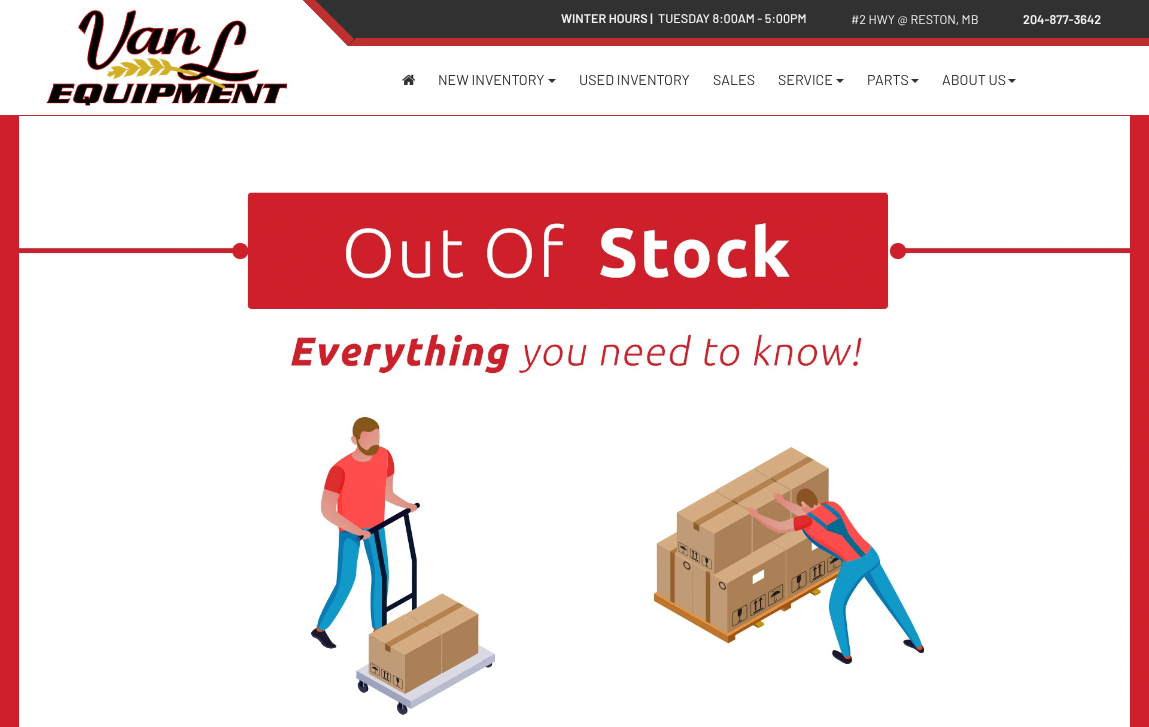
(async () => {
  const canvas = document.querySelector("canvas");
  canvas.width = 1149;
  canvas.height = 727;
  const ctx = canvas.getContext("2d");
  ctx.miterLimit = 4;
  ctx.fontKerning = "normal";
  async function loadImage(src) {
    const img = new Image();
    img.src = src;
    await img.decode();
    return img;
  }
  let path;

  ctx.fillStyle = "#ffffff";
  ctx.fillRect(0, 0, 1149, 727);
  ctx.fillStyle = "#313131";
  ctx.fillRect(348, 0, 801, 46);
  ctx.fillStyle = "#be3030";
  path = new Path2D("M1149 46H348L349 38H1149Z");
  ctx.fill(path);
  ctx.fillStyle = "#313131";
  path = new Path2D("M375 19L348 46L300-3L327-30Z");
  ctx.fill(path);
  ctx.fillStyle = "#be3030";
  path = new Path2D("M354 39L348 46L300-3L306-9Z");
  ctx.fill(path);
  ctx.fillRect(0, 115, 1149, 1);
  ctx.drawImage(await loadImage("img/1.png"), 46, 9, 241, 98);
  ctx.drawImage(await loadImage("img/2.png"), 402, 74, 13, 11);
  ctx.fillStyle = "#313131";
  path = new Path2D("M548 79H556L552 83Z");
  ctx.fill(path);
  path = new Path2D("M836 79H844L840 83Z");
  ctx.fill(path);
  path = new Path2D("M911 79H919L915 83Z");
  ctx.fill(path);
  path = new Path2D("M1008 79H1016L1012 83Z");
  ctx.fill(path);
  ctx.drawImage(await loadImage("img/3.png"), 0, 116, 1149, 611);
  ctx.font = "600 12.6px Barlow";
  ctx.fillStyle = "#f1f1f1";
  ctx.fillText("WINTER HOURS |", 561, 23);
  ctx.font = "500 12.6px Barlow";
  ctx.fillText("TUESDAY 8:00AM - 5:00PM", 658, 23);
  ctx.font = "12.6px Barlow";
  ctx.fillText("#2 HWY @ RESTON, MB", 851, 24);
  ctx.font = "600 12.6px Barlow";
  ctx.fillText("204-877-3642", 1023, 24);
  ctx.font = "14.25px Barlow";
  ctx.fillStyle = "#313131";
  for (const [text, x, y] of [
    ["NEW INVENTORY", 438, 85],
    ["USED INVENTORY", 579, 85],
    ["SALES", 713, 85],
    ["SERVICE", 778, 85],
    ["PARTS", 867, 85],
    ["ABOUT US", 942, 85],
  ]) {
    ctx.fillText(text, x, y);
  }
})();
